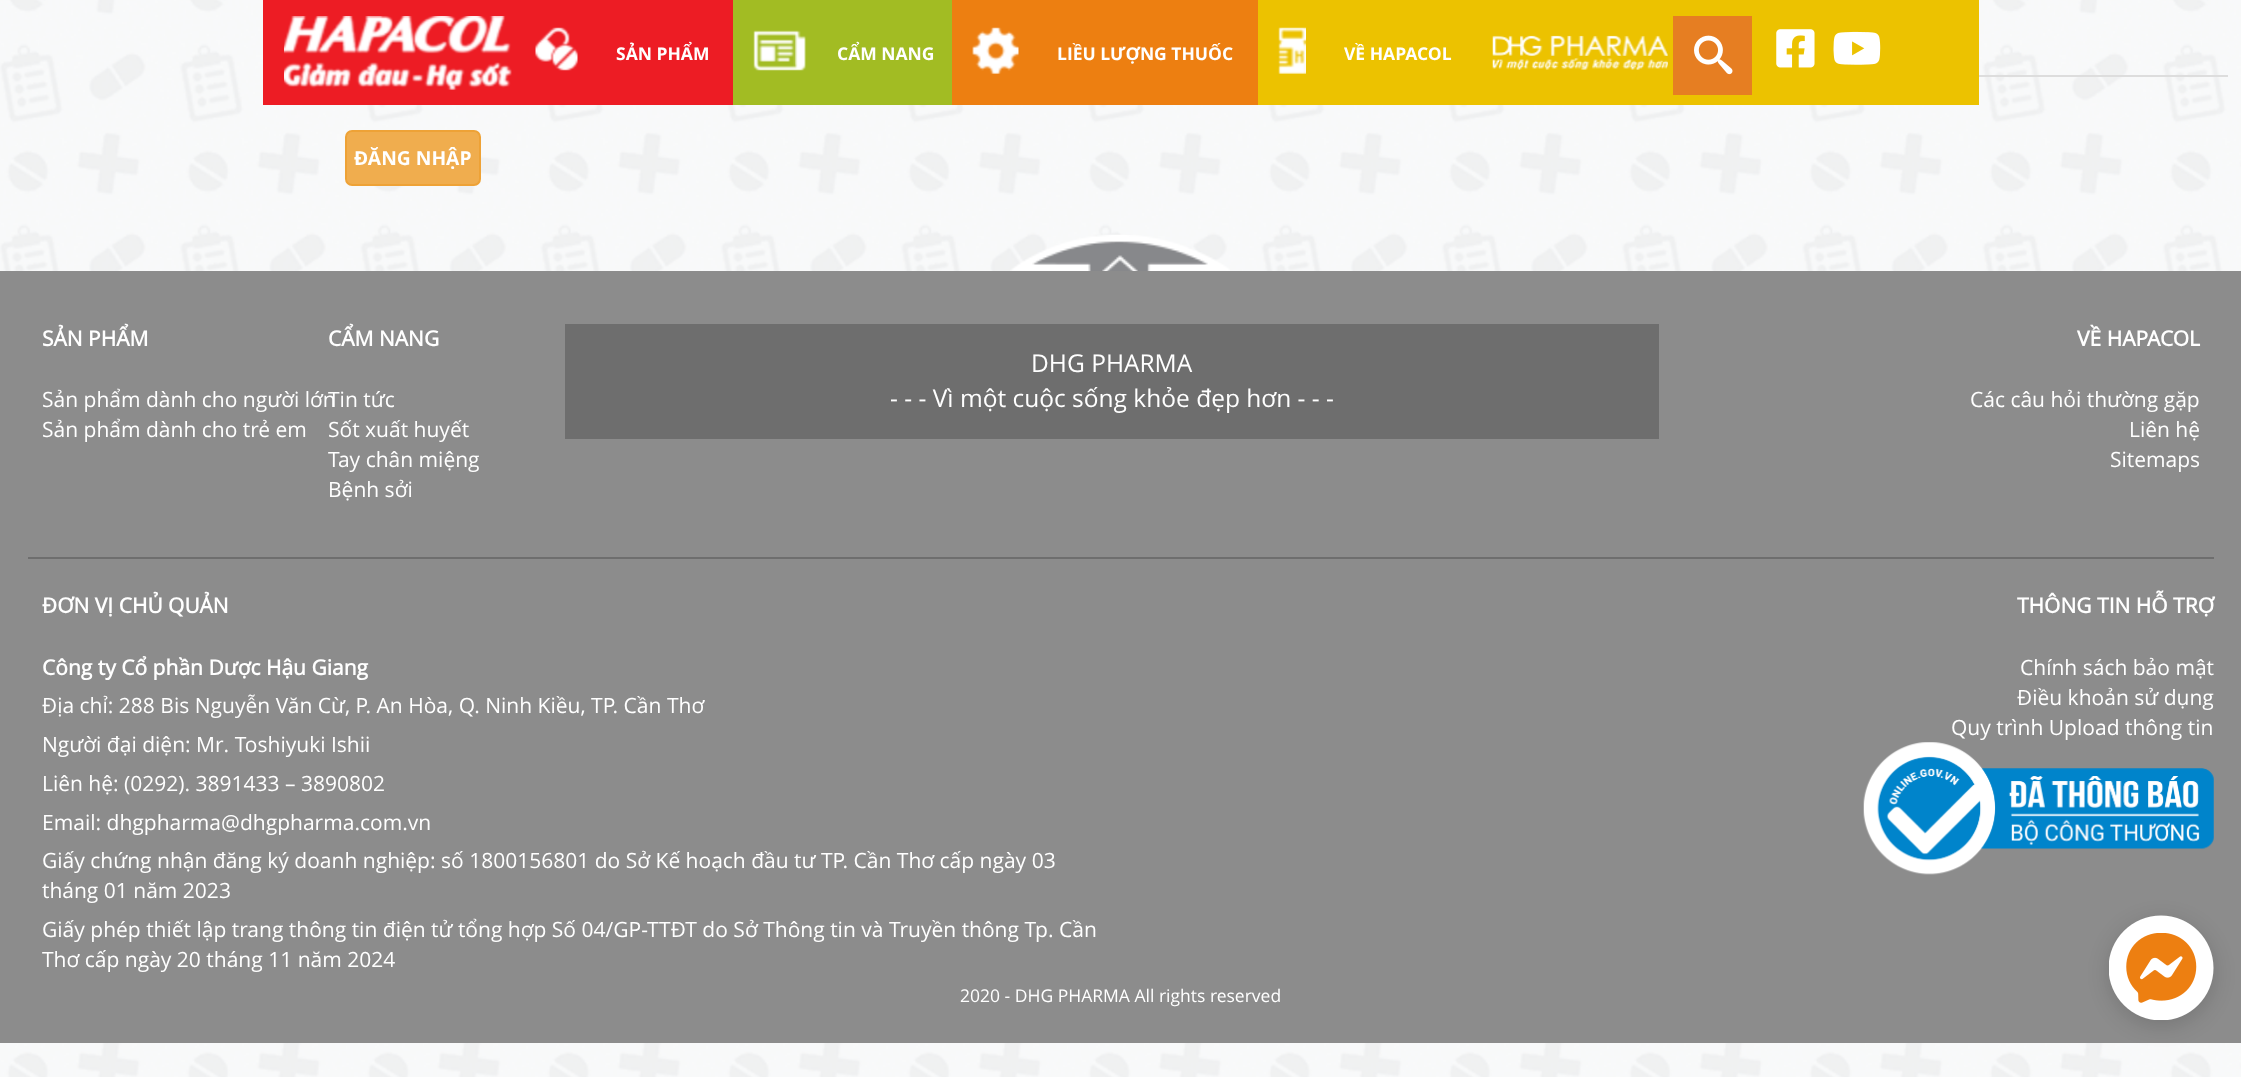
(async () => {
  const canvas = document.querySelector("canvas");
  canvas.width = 2241;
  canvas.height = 1077;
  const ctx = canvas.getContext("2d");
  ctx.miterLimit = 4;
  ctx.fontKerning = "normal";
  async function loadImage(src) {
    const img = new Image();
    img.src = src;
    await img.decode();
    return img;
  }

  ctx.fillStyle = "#ffffff";
  ctx.fillRect(0, 0, 2241, 1077);
  ctx.drawImage(await loadImage("img/1.png"), 0, 0, 2241, 1077);
  ctx.fillStyle = "#ecc200";
  ctx.fillRect(1258, 0, 721, 105);
  ctx.fillStyle = "#ed1c24";
  ctx.fillRect(263, 0, 470, 105);
  ctx.drawImage(await loadImage("img/2.png"), 284, 16, 228, 74);
  ctx.drawImage(await loadImage("img/3.png"), 1492, 35, 176, 35);
  ctx.fillStyle = "#e67e22";
  ctx.fillRect(1673, 16, 79, 79);
  ctx.drawImage(await loadImage("img/4.png"), 1694, 35, 39, 40);
  ctx.drawImage(await loadImage("img/5.png"), 1776, 29, 39, 39);
  ctx.drawImage(await loadImage("img/6.png"), 1833, 31, 48, 34);
  ctx.drawImage(await loadImage("img/7.png"), 535, 27, 43, 44);
  ctx.fillStyle = "#a2bc23";
  ctx.fillRect(733, 0, 219, 105);
  ctx.drawImage(await loadImage("img/8.png"), 753, 30, 53, 41);
  ctx.fillStyle = "#ed7f11";
  ctx.fillRect(952, 0, 306, 105);
  ctx.drawImage(await loadImage("img/9.png"), 972, 27, 47, 47);
  ctx.drawImage(await loadImage("img/10.png"), 1278, 27, 28, 47);
  ctx.fillStyle = "#f0ad4e";
  ctx.beginPath();
  ctx.roundRect(346, 131, 134, 54, 6);
  ctx.fill();
  ctx.strokeStyle = "#eea236";
  ctx.lineWidth = 2;
  ctx.stroke();
  ctx.fillStyle = "#dddddd";
  ctx.fillRect(1979, 75, 249, 2);
  ctx.drawImage(await loadImage("img/11.png"), 1010, 234, 220, 37);
  for (const [x, y, w, h, color] of [
    [0, 271, 2241, 772, "#8c8c8c"],
    [565, 324, 1094, 115, "#6e6e6e"],
    [28, 557, 2186, 2, "#6e6e6e"],
  ]) {
    ctx.fillStyle = color;
    ctx.fillRect(x, y, w, h);
  }
  ctx.drawImage(await loadImage("img/12.png"), 1863, 742, 351, 133);
  ctx.fillStyle = "rgba(0, 0, 0, 0.15)";
  ctx.filter = "blur(10.5px)";
  ctx.beginPath();
  ctx.roundRect(2109, 921, 105, 105, 52.5);
  ctx.fill();
  ctx.filter = "none";
  ctx.drawImage(await loadImage("img/13.png"), 2109, 915, 105, 105);
  ctx.font = "bold 17.5px Open Sans";
  ctx.fillStyle = "#ffffff";
  for (const [text, x, y] of [
    ["SẢN PHẨM", 616, 60],
    ["CẨM NANG", 837, 60],
    ["LIỀU LƯỢNG THUỐC", 1057, 60],
    ["VỀ HAPACOL", 1344, 60],
  ]) {
    ctx.fillText(text, x, y);
  }
  ctx.font = "bold 19.25px Open Sans";
  ctx.fillText("ĐĂNG NHẬP", 354, 165);
  ctx.font = "bold 21px 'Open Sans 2'";
  ctx.fillText("SẢN PHẨM", 42, 346);
  ctx.font = "21px Open Sans";
  ctx.fillText("Sản phẩm dành cho người lớn", 42, 407);
  ctx.fillText("Sản phẩm dành cho trẻ em", 42, 437);
  ctx.font = "bold 21px 'Open Sans 2'";
  ctx.fillText("CẨM NANG", 328, 346);
  ctx.font = "21px Open Sans";
  for (const [text, x, y] of [
    ["Tin tức", 328, 407],
    ["Sốt xuất huyết", 328, 437],
    ["Tay chân miệng", 328, 467],
    ["Bệnh sởi", 328, 497],
  ]) {
    ctx.fillText(text, x, y);
  }
  ctx.font = "24.5px Open Sans";
  ctx.fillText("DHG PHARMA", 1031, 372);
  ctx.fillText("- - - Vì một cuộc sống khỏe đẹp hơn - - -", 890, 407);
  ctx.font = "bold 21px 'Open Sans 2'";
  ctx.fillText("VỀ HAPACOL", 2077, 346);
  ctx.font = "21px Open Sans";
  for (const [text, x, y] of [
    ["Các câu hỏi thường gặp", 1970, 407],
    ["Liên hệ", 2129, 437],
    ["Sitemaps", 2110, 467],
  ]) {
    ctx.fillText(text, x, y);
  }
  ctx.font = "bold 21px 'Open Sans 2'";
  ctx.fillText("ĐƠN VỊ CHỦ QUẢN", 42, 613);
  ctx.fillText("Công ty Cổ phần Dược Hậu Giang", 42, 675);
  ctx.font = "21px Open Sans";
  for (const [text, x, y] of [
    ["Địa chỉ: 288 Bis Nguyễn Văn Cừ, P. An Hòa, Q. Ninh Kiều, TP. Cần Thơ", 42, 713],
    ["Người đại diện: Mr. Toshiyuki Ishii", 42, 752],
    ["Liên hệ: (0292). 3891433 – 3890802", 42, 791],
    ["Email: dhgpharma@dhgpharma.com.vn", 42, 830],
    ["Giấy chứng nhận đăng ký doanh nghiệp: số 1800156801 do Sở Kế hoạch đầu tư TP. Cần Thơ cấp ngày 03", 42, 868],
    ["tháng 01 năm 2023", 42, 898],
    ["Giấy phép thiết lập trang thông tin điện tử tổng hợp Số 04/GP-TTĐT do Sở Thông tin và Truyền thông Tp. Cần", 42, 937],
    ["Thơ cấp ngày 20 tháng 11 năm 2024", 42, 967],
  ]) {
    ctx.fillText(text, x, y);
  }
  ctx.font = "bold 21px 'Open Sans 2'";
  ctx.fillText("THÔNG TIN HỖ TRỢ", 2017, 613);
  ctx.font = "21px Open Sans";
  for (const [text, x, y] of [
    ["Chính sách bảo mật", 2020, 675],
    ["Điều khoản sử dụng", 2017, 705],
    ["Quy trình Upload thông tin", 1951, 735],
  ]) {
    ctx.fillText(text, x, y);
  }
  ctx.font = "17.5px Open Sans";
  ctx.fillText("2020 - DHG PHARMA All rights reserved", 960, 1002);
})();
